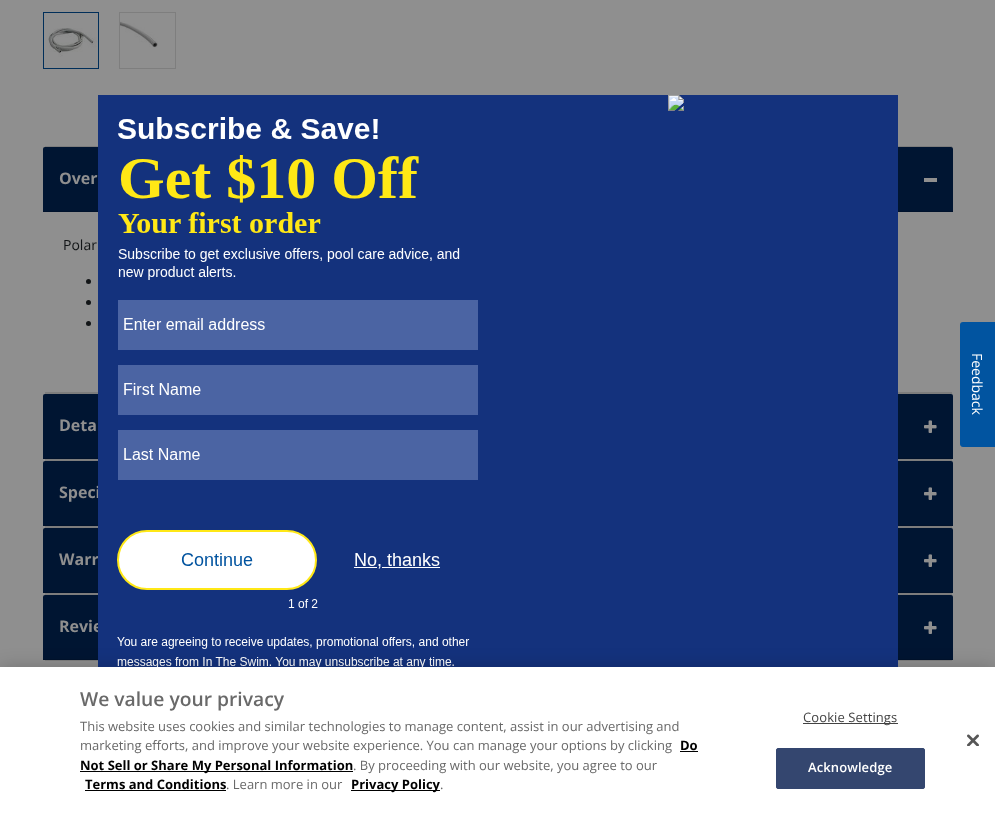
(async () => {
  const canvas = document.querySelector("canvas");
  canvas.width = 995;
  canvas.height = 815;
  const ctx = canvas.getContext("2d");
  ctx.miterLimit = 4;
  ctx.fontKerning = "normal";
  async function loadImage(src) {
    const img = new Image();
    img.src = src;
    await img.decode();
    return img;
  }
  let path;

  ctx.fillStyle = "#8f8f8f";
  ctx.fillRect(0, 0, 995, 815);
  ctx.strokeStyle = "#002e59";
  ctx.strokeRect(43.5, 12.5, 55, 56);
  ctx.drawImage(await loadImage("img/1.png"), 48, 28, 49, 29);
  ctx.strokeStyle = "#7e7e7e";
  ctx.strokeRect(119.5, 12.5, 56, 56);
  ctx.drawImage(await loadImage("img/2.png"), 120, 21, 38, 27);
  ctx.fillStyle = "#7d7d7d";
  ctx.fillRect(45, 146, 907, 1);
  ctx.fillRect(45, 392, 907, 2);
  ctx.fillStyle = "#001532";
  ctx.beginPath();
  ctx.roundRect(43, 147, 910, 65, [2, 2, 0, 0]);
  ctx.fill();
  ctx.fillStyle = "#00122c";
  ctx.fillRect(43, 211, 910, 1);
  ctx.fillStyle = "#8f8f8f";
  ctx.fillRect(924, 178, 13, 4);
  ctx.fillStyle = "#121517";
  ctx.beginPath();
  ctx.arc(88.5, 281.5, 2.5, 0, Math.PI * 2);
  ctx.fill();
  ctx.beginPath();
  ctx.arc(88.5, 302.5, 2.5, 0, Math.PI * 2);
  ctx.fill();
  ctx.beginPath();
  ctx.arc(88.5, 323.5, 2.5, 0, Math.PI * 2);
  ctx.fill();
  ctx.fillStyle = "#7d7d7d";
  ctx.fillRect(45, 459, 907, 2);
  ctx.fillStyle = "#001532";
  ctx.beginPath();
  ctx.roundRect(43, 394, 910, 65, [2, 2, 0, 0]);
  ctx.fill();
  ctx.fillStyle = "#00122c";
  ctx.fillRect(43, 458, 910, 1);
  ctx.drawImage(await loadImage("img/3.png"), 924, 420, 13, 13);
  ctx.fillStyle = "#7d7d7d";
  ctx.fillRect(45, 526, 907, 2);
  ctx.fillStyle = "#001532";
  ctx.beginPath();
  ctx.roundRect(43, 461, 910, 65, [2, 2, 0, 0]);
  ctx.fill();
  ctx.fillStyle = "#00122c";
  ctx.fillRect(43, 525, 910, 1);
  ctx.drawImage(await loadImage("img/3.png"), 924, 487, 13, 13);
  ctx.fillStyle = "#7d7d7d";
  ctx.fillRect(45, 593, 907, 2);
  ctx.fillStyle = "#001532";
  ctx.beginPath();
  ctx.roundRect(43, 528, 910, 65, [2, 2, 0, 0]);
  ctx.fill();
  ctx.fillStyle = "#00122c";
  ctx.fillRect(43, 592, 910, 1);
  ctx.drawImage(await loadImage("img/3.png"), 924, 554, 13, 13);
  ctx.fillStyle = "#7d7d7d";
  ctx.fillRect(45, 660, 907, 1);
  ctx.fillStyle = "#001532";
  ctx.beginPath();
  ctx.roundRect(43, 595, 910, 65, [2, 2, 0, 0]);
  ctx.fill();
  ctx.fillStyle = "#00122c";
  ctx.fillRect(43, 659, 910, 1);
  ctx.drawImage(await loadImage("img/3.png"), 924, 621, 13, 13);
  ctx.fillStyle = "#0154a0";
  path = new Path2D("M995 322V447H963C961 447 960 445 960 444V325C960 323 961 322 963 322Z");
  ctx.fill(path);
  ctx.font = "bold 16px Open Sans";
  ctx.fillStyle = "#8f8f8f";
  ctx.fillText("Over", 59, 184);
  ctx.font = "14px Open Sans";
  ctx.fillStyle = "#121517";
  ctx.fillText("Polar", 63, 250);
  ctx.font = "bold 16px Open Sans";
  ctx.fillStyle = "#8f8f8f";
  for (const [text, x, y] of [
    ["Deta", 59, 431],
    ["Speci", 59, 498],
    ["Warr", 59, 565],
    ["Revie", 59, 632],
  ]) {
    ctx.fillText(text, x, y);
  }
  ctx.drawImage(await loadImage("img/4.png"), 98, 95, 800, 572);
  ctx.font = "14px Open Sans";
  ctx.fillStyle = "#ffffff";
  ctx.save();
  ctx.translate(972, 353);
  ctx.rotate(90 * Math.PI / 180);
  ctx.fillText("Feedback", 0, 0);
  ctx.restore();
  ctx.fillStyle = "rgba(0, 0, 0, 0.2)";
  ctx.filter = "blur(9px)";
  ctx.beginPath();
  ctx.rect(0, 667, 995, 148);
  ctx.fill();
  ctx.filter = "none";
  ctx.fillStyle = "#ffffff";
  ctx.fillRect(0, 667, 995, 148);
  ctx.font = "600 19.25px Open Sans";
  ctx.fillStyle = "#696969";
  ctx.fillText("We value your privacy", 80, 706);
  ctx.font = "13px Open Sans";
  ctx.fillText("This website uses cookies and similar technologies to manage content, assist in our advertising and", 80, 731);
  ctx.fillText("marketing efforts, and improve your website experience. You can manage your options by clicking", 80, 750);
  ctx.font = "bold 13px Open Sans";
  ctx.fillStyle = "#000000";
  ctx.fillText("Do", 680, 750);
  ctx.fillRect(680, 751, 18, 1);
  ctx.fillRect(80, 771, 273, 1);
  ctx.fillText("Not Sell or Share My Personal Information", 80, 770);
  ctx.font = "13px Open Sans";
  ctx.fillStyle = "#696969";
  ctx.fillText(". By proceeding with our website, you agree to our", 353, 770);
  ctx.font = "bold 13px Open Sans";
  ctx.fillStyle = "#000000";
  ctx.fillText("Terms and Conditions", 85, 789);
  ctx.fillRect(85, 790, 141, 1);
  ctx.font = "13px Open Sans";
  ctx.fillStyle = "#696969";
  ctx.fillText(". Learn more in our", 226, 789);
  ctx.fillStyle = "#000000";
  ctx.fillRect(351, 790, 89, 1);
  ctx.font = "bold 13px Open Sans";
  ctx.fillText("Privacy Policy", 351, 789);
  ctx.font = "13px Open Sans";
  ctx.fillStyle = "#696969";
  ctx.fillText(".", 440, 789);
  ctx.fillStyle = "#434343";
  ctx.fillRect(803, 723, 95, 1);
  ctx.letterSpacing = "0.1px";
  ctx.fillText("Cookie Settings", 803, 722);
  ctx.fillStyle = "#34466f";
  ctx.beginPath();
  ctx.roundRect(776.5, 748.5, 148, 40, 1.5);
  ctx.fill();
  ctx.strokeStyle = "#34466f";
  ctx.stroke();
  ctx.font = "600 13px Open Sans";
  ctx.fillStyle = "#ffffff";
  ctx.fillText("Acknowledge", 808, 772);
  ctx.drawImage(await loadImage("img/5.png"), 967, 734, 12, 12);
})();
